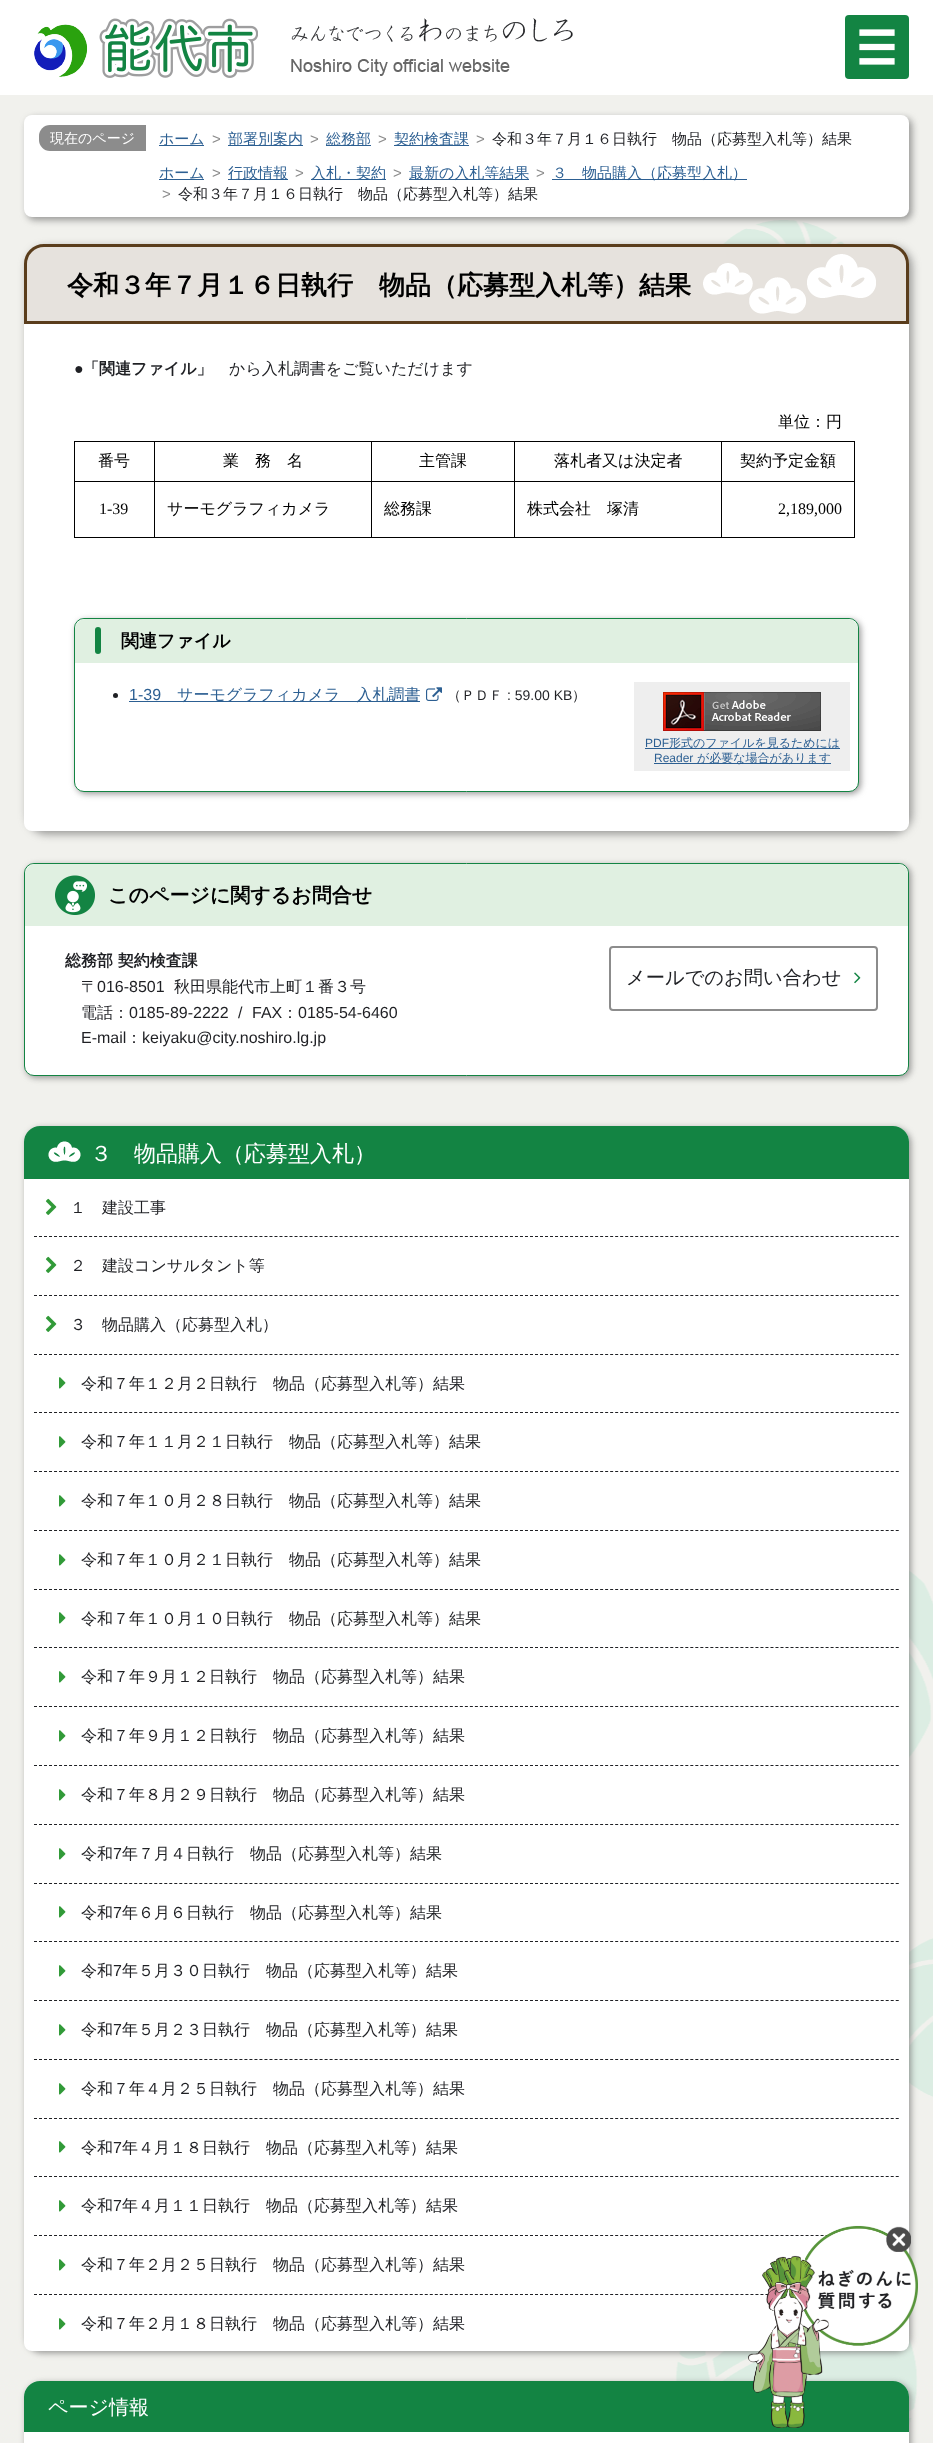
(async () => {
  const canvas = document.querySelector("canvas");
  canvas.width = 933;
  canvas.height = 2443;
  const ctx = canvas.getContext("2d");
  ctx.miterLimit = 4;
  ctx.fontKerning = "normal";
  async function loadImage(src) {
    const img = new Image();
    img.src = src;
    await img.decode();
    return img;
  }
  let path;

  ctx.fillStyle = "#f1f1ed";
  ctx.fillRect(0, 0, 933, 2443);
  ctx.drawImage(await loadImage("img/1.png"), 619, 220, 314, 2223);
  ctx.fillStyle = "#ffffff";
  ctx.fillRect(0, 0, 933, 95);
  ctx.drawImage(await loadImage("img/2.png"), 34, 18, 224, 60);
  ctx.drawImage(await loadImage("img/3.png"), 291, 18, 282, 24);
  ctx.drawImage(await loadImage("img/4.png"), 291, 59, 219, 17);
  ctx.fillStyle = "#138443";
  ctx.beginPath();
  ctx.roundRect(845, 15, 64, 64, 4);
  ctx.fill();
  ctx.drawImage(await loadImage("img/5.png"), 859, 29, 36, 36);
  ctx.fillStyle = "rgba(102, 102, 102, 0.65)";
  ctx.filter = "blur(3.5px)";
  ctx.beginPath();
  ctx.roundRect(27, 118, 885, 102, 8);
  ctx.fill();
  ctx.filter = "none";
  ctx.fillStyle = "#ffffff";
  ctx.beginPath();
  ctx.roundRect(24, 115, 885, 102, 8);
  ctx.fill();
  ctx.fillStyle = "#8c8c8c";
  ctx.beginPath();
  ctx.roundRect(39, 125, 107, 26, [11, 0, 0, 11]);
  ctx.fill();
  for (const [x, y, w, h, color] of [
    [159, 145, 45, 1, "#2c5f92"],
    [228, 145, 75, 1, "#2c5f92"],
    [326, 145, 45, 1, "#2c5f92"],
    [394, 145, 75, 1, "#2c5f92"],
    [159, 179, 45, 1, "#2c5f92"],
    [228, 179, 60, 1, "#2c5f92"],
    [311, 179, 75, 1, "#2c5f92"],
    [409, 179, 120, 1, "#2c5f92"],
    [552, 179, 195, 1, "#2c5f92"],
  ]) {
    ctx.fillStyle = color;
    ctx.fillRect(x, y, w, h);
  }
  ctx.fillStyle = "rgba(102, 102, 102, 0.65)";
  ctx.filter = "blur(4.5px)";
  ctx.beginPath();
  ctx.roundRect(27, 247, 885, 587, 20);
  ctx.fill();
  ctx.filter = "none";
  ctx.fillStyle = "#ffffff";
  ctx.beginPath();
  ctx.roundRect(24, 244, 885, 587, [20, 20, 8, 8]);
  ctx.fill();
  ctx.fillStyle = "rgba(90, 61, 28, 0.15)";
  ctx.beginPath();
  ctx.roundRect(24, 244, 885, 80, [20, 20, 0, 0]);
  ctx.fill();
  ctx.drawImage(await loadImage("img/6.png"), 703, 254, 173, 60);
  ctx.beginPath();
  ctx.roundRect(25.5, 245.5, 882, 77, [18.5, 18.5, 0, 0]);
  ctx.strokeStyle = "#5a3d1c";
  ctx.lineWidth = 3;
  ctx.stroke();
  for (const [x, y, w, h, color] of [
    [721, 441, 134, 1, "#000000"],
    [854, 481, 1, 57, "#000000"],
    [854, 441, 1, 41, "#000000"],
    [721, 537, 134, 1, "#000000"],
    [721, 481, 1, 57, "#000000"],
    [721, 481, 134, 1, "#000000"],
    [721, 441, 1, 41, "#000000"],
    [74, 441, 648, 1, "#000000"],
    [514, 537, 208, 1, "#000000"],
    [514, 481, 1, 57, "#000000"],
    [514, 481, 208, 1, "#000000"],
    [514, 441, 1, 41, "#000000"],
    [371, 537, 144, 1, "#000000"],
    [371, 481, 1, 57, "#000000"],
    [371, 481, 144, 1, "#000000"],
    [371, 441, 1, 41, "#000000"],
    [154, 537, 218, 1, "#000000"],
    [154, 481, 1, 57, "#000000"],
    [154, 481, 218, 1, "#000000"],
    [154, 441, 1, 41, "#000000"],
    [74, 537, 81, 1, "#000000"],
    [74, 481, 1, 57, "#000000"],
    [74, 481, 81, 1, "#000000"],
    [74, 441, 1, 41, "#000000"],
  ]) {
    ctx.fillStyle = color;
    ctx.fillRect(x, y, w, h);
  }
  ctx.fillStyle = "rgba(102, 102, 102, 0.65)";
  ctx.filter = "blur(3px)";
  ctx.beginPath();
  ctx.roundRect(76, 620, 785, 174, 10);
  ctx.fill();
  ctx.filter = "none";
  ctx.fillStyle = "#ffffff";
  ctx.beginPath();
  ctx.roundRect(74.5, 618.5, 784, 173, 9.5);
  ctx.fill();
  ctx.strokeStyle = "#138443";
  ctx.lineWidth = 1;
  ctx.stroke();
  ctx.fillStyle = "#e0f0e1";
  ctx.beginPath();
  ctx.roundRect(75, 619, 783, 44, [10, 10, 0, 0]);
  ctx.fill();
  ctx.fillStyle = "#138443";
  ctx.beginPath();
  ctx.roundRect(95, 627, 6, 27, 3);
  ctx.fill();
  ctx.fillStyle = "#1f2024";
  ctx.beginPath();
  ctx.arc(115.5, 695.5, 2.5, 0, Math.PI * 2);
  ctx.fill();
  ctx.fillStyle = "#2c5f92";
  ctx.fillRect(129, 701, 291, 1);
  ctx.drawImage(await loadImage("img/7.png"), 426, 687, 16, 14);
  ctx.fillStyle = "#eeeeee";
  ctx.fillRect(634, 682, 216, 89);
  ctx.drawImage(await loadImage("img/8.png"), 663, 692, 158, 39);
  ctx.fillStyle = "#2c5f92";
  ctx.fillRect(645, 748, 195, 1);
  ctx.fillRect(654, 763, 177, 1);
  ctx.fillStyle = "rgba(102, 102, 102, 0.65)";
  ctx.filter = "blur(3px)";
  ctx.beginPath();
  ctx.roundRect(26, 865, 885, 213, 10);
  ctx.fill();
  ctx.filter = "none";
  ctx.fillStyle = "#ffffff";
  ctx.beginPath();
  ctx.roundRect(24.5, 863.5, 884, 212, 9.5);
  ctx.fill();
  ctx.stroke();
  ctx.fillStyle = "#e0f0e1";
  ctx.beginPath();
  ctx.roundRect(25, 864, 883, 62, [10, 10, 0, 0]);
  ctx.fill();
  ctx.drawImage(await loadImage("img/9.png"), 55, 875, 40, 40);
  ctx.beginPath();
  ctx.roundRect(610, 947, 267, 63, 3);
  ctx.strokeStyle = "#8c8c8c";
  ctx.lineWidth = 2;
  ctx.stroke();
  ctx.drawImage(await loadImage("img/10.png"), 854, 972, 7, 12);
  ctx.fillStyle = "rgba(102, 102, 102, 0.65)";
  ctx.filter = "blur(3px)";
  ctx.beginPath();
  ctx.roundRect(26, 1128, 885, 1225, 16);
  ctx.fill();
  ctx.filter = "none";
  ctx.fillStyle = "#ffffff";
  ctx.beginPath();
  ctx.roundRect(24, 1126, 885, 1225, [16, 16, 8, 8]);
  ctx.fill();
  ctx.fillStyle = "#138443";
  ctx.beginPath();
  ctx.roundRect(24, 1126, 885, 53, [16, 16, 0, 0]);
  ctx.fill();
  ctx.drawImage(await loadImage("img/11.png"), 48, 1141, 33, 21);
  ctx.drawImage(await loadImage("img/12.png"), 45, 1198, 12, 17);
  path = new Path2D("M34 1236.5H899");
  ctx.strokeStyle = "#1f2024";
  ctx.lineWidth = 1;
  ctx.setLineDash([3, 2.01]);
  ctx.stroke(path);
  ctx.drawImage(await loadImage("img/12.png"), 45, 1256, 12, 17);
  path = new Path2D("M34 1295.5H899");
  ctx.stroke(path);
  ctx.drawImage(await loadImage("img/12.png"), 45, 1315, 12, 17);
  path = new Path2D("M34 1354.5H899");
  ctx.stroke(path);
  ctx.drawImage(await loadImage("img/13.png"), 59, 1377, 7, 12);
  path = new Path2D("M34 1412.5H899");
  ctx.stroke(path);
  ctx.drawImage(await loadImage("img/13.png"), 59, 1436, 7, 12);
  path = new Path2D("M34 1471.5H899");
  ctx.stroke(path);
  ctx.drawImage(await loadImage("img/13.png"), 59, 1495, 7, 12);
  path = new Path2D("M34 1530.5H899");
  ctx.stroke(path);
  ctx.drawImage(await loadImage("img/13.png"), 59, 1554, 7, 12);
  path = new Path2D("M34 1589.5H899");
  ctx.stroke(path);
  ctx.drawImage(await loadImage("img/13.png"), 59, 1612, 7, 12);
  path = new Path2D("M34 1647.5H899");
  ctx.stroke(path);
  ctx.drawImage(await loadImage("img/13.png"), 59, 1671, 7, 12);
  path = new Path2D("M34 1706.5H899");
  ctx.stroke(path);
  ctx.drawImage(await loadImage("img/13.png"), 59, 1730, 7, 12);
  path = new Path2D("M34 1765.5H899");
  ctx.stroke(path);
  ctx.drawImage(await loadImage("img/13.png"), 59, 1789, 7, 12);
  path = new Path2D("M34 1824.5H899");
  ctx.stroke(path);
  ctx.drawImage(await loadImage("img/13.png"), 59, 1848, 7, 12);
  path = new Path2D("M34 1883.5H899");
  ctx.stroke(path);
  ctx.drawImage(await loadImage("img/13.png"), 59, 1906, 7, 12);
  path = new Path2D("M34 1941.5H899");
  ctx.stroke(path);
  ctx.drawImage(await loadImage("img/13.png"), 59, 1965, 7, 12);
  path = new Path2D("M34 2000.5H899");
  ctx.stroke(path);
  ctx.drawImage(await loadImage("img/13.png"), 59, 2024, 7, 12);
  path = new Path2D("M34 2059.5H899");
  ctx.stroke(path);
  ctx.drawImage(await loadImage("img/13.png"), 59, 2083, 7, 12);
  path = new Path2D("M34 2118.5H899");
  ctx.stroke(path);
  ctx.drawImage(await loadImage("img/13.png"), 59, 2141, 7, 12);
  path = new Path2D("M34 2176.5H899");
  ctx.stroke(path);
  ctx.drawImage(await loadImage("img/13.png"), 59, 2200, 7, 12);
  path = new Path2D("M34 2235.5H899");
  ctx.stroke(path);
  ctx.drawImage(await loadImage("img/13.png"), 59, 2259, 7, 12);
  path = new Path2D("M34 2294.5H899");
  ctx.stroke(path);
  ctx.drawImage(await loadImage("img/13.png"), 59, 2318, 7, 12);
  ctx.fillStyle = "rgba(102, 102, 102, 0.65)";
  ctx.filter = "blur(3px)";
  ctx.beginPath();
  ctx.roundRect(26, 2383, 885, 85, 16);
  ctx.fill();
  ctx.filter = "none";
  ctx.fillStyle = "#ffffff";
  path = new Path2D("M40 2381H893C902 2381 909 2388 909 2397V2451C909 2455.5 905.5 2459 901 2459H32C27.5 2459 24 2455.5 24 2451V2397C24 2388 31 2381 40 2381Z");
  ctx.fill(path);
  ctx.fillStyle = "#138443";
  ctx.beginPath();
  ctx.roundRect(24, 2381, 885, 51, [16, 16, 0, 0]);
  ctx.fill();
  ctx.drawImage(await loadImage("img/14.png"), 748, 2225, 170, 203);
  ctx.drawImage(await loadImage("img/15.png"), 886, 2226, 25, 26);
  ctx.font = "500 14px WenQuanYi Zen Hei";
  ctx.fillStyle = "#ffffff";
  ctx.fillText("現在のページ", 50, 143);
  ctx.font = "500 15px WenQuanYi Zen Hei";
  ctx.fillStyle = "#2c5f92";
  ctx.fillText("ホーム", 159, 144);
  ctx.font = "15px Liberation Sans";
  ctx.fillStyle = "#8c8c8c";
  ctx.fillText(">", 212, 144);
  ctx.font = "500 15px WenQuanYi Zen Hei";
  ctx.fillStyle = "#2c5f92";
  ctx.fillText("部署別案内", 228, 144);
  ctx.font = "15px Liberation Sans";
  ctx.fillStyle = "#8c8c8c";
  ctx.fillText(">", 310, 144);
  ctx.font = "500 15px WenQuanYi Zen Hei";
  ctx.fillStyle = "#2c5f92";
  ctx.fillText("総務部", 326, 144);
  ctx.font = "15px Liberation Sans";
  ctx.fillStyle = "#8c8c8c";
  ctx.fillText(">", 378, 144);
  ctx.font = "500 15px WenQuanYi Zen Hei";
  ctx.fillStyle = "#2c5f92";
  ctx.fillText("契約検査課", 394, 144);
  ctx.font = "15px Liberation Sans";
  ctx.fillStyle = "#8c8c8c";
  ctx.fillText(">", 476, 144);
  ctx.font = "500 15px WenQuanYi Zen Hei";
  ctx.fillStyle = "#1f2024";
  ctx.fillText("令和３年７月１６日執行　物品（応募型入札等）結果", 492, 144);
  ctx.fillStyle = "#2c5f92";
  ctx.fillText("ホーム", 159, 178);
  ctx.font = "15px Liberation Sans";
  ctx.fillStyle = "#8c8c8c";
  ctx.fillText(">", 212, 178);
  ctx.font = "500 15px WenQuanYi Zen Hei";
  ctx.fillStyle = "#2c5f92";
  ctx.fillText("行政情報", 228, 178);
  ctx.font = "15px Liberation Sans";
  ctx.fillStyle = "#8c8c8c";
  ctx.fillText(">", 295, 178);
  ctx.font = "500 15px WenQuanYi Zen Hei";
  ctx.fillStyle = "#2c5f92";
  ctx.fillText("入札・契約", 311, 178);
  ctx.font = "15px Liberation Sans";
  ctx.fillStyle = "#8c8c8c";
  ctx.fillText(">", 393, 178);
  ctx.font = "500 15px WenQuanYi Zen Hei";
  ctx.fillStyle = "#2c5f92";
  ctx.fillText("最新の入札等結果", 409, 178);
  ctx.font = "15px Liberation Sans";
  ctx.fillStyle = "#8c8c8c";
  ctx.fillText(">", 536, 178);
  ctx.font = "500 15px WenQuanYi Zen Hei";
  ctx.fillStyle = "#2c5f92";
  ctx.fillText("３　物品購入（応募型入札）", 552, 178);
  ctx.font = "15px Liberation Sans";
  ctx.fillStyle = "#8c8c8c";
  ctx.fillText(">", 162, 199);
  ctx.font = "500 15px WenQuanYi Zen Hei";
  ctx.fillStyle = "#1f2024";
  ctx.fillText("令和３年７月１６日執行　物品（応募型入札等）結果", 178, 199);
  ctx.font = "bold 26px WenQuanYi Zen Hei";
  ctx.fillStyle = "#000000";
  ctx.fillText("令和３年７月１６日執行　物品（応募型入札等）結果", 67, 294);
  ctx.font = "16px Liberation Sans";
  ctx.fillStyle = "#1f2024";
  ctx.fillText("●", 74, 374);
  ctx.font = "bold 16px WenQuanYi Zen Hei";
  ctx.fillText("「関連ファイル」", 83, 374);
  ctx.font = "500 16px WenQuanYi Zen Hei";
  ctx.fillText("から入札調書をご覧いただけます", 229, 374);
  ctx.fillStyle = "#000000";
  for (const [text, x, y] of [
    ["単位：円", 778, 427],
    ["番号", 98, 466],
    ["業　務　名", 223, 466],
    ["主管課", 419, 466],
    ["落札者又は決定者", 554, 466],
    ["契約予定金額", 740, 466],
  ]) {
    ctx.fillText(text, x, y);
  }
  ctx.font = "16px Liberation Serif";
  ctx.fillText("1-39", 99, 514);
  ctx.font = "500 16px WenQuanYi Zen Hei";
  for (const [text, x, y] of [
    ["サーモグラフィカメラ", 167, 514],
    ["総務課", 384, 514],
    ["株式会社　塚清", 527, 514],
  ]) {
    ctx.fillText(text, x, y);
  }
  ctx.font = "16px Liberation Serif";
  ctx.fillText("2,189,000", 778, 514);
  ctx.font = "bold 18px WenQuanYi Zen Hei";
  ctx.fillText("関連ファイル", 121, 647);
  ctx.font = "16px Liberation Sans";
  ctx.fillStyle = "#2c5f92";
  ctx.fillText("1-39", 129, 700);
  ctx.font = "500 16px WenQuanYi Zen Hei";
  ctx.fillText("サーモグラフィカメラ　入札調書", 177, 700);
  ctx.font = "500 14px WenQuanYi Zen Hei";
  ctx.fillStyle = "#1f2024";
  ctx.fillText("（ＰＤＦ", 447, 700);
  ctx.font = "14px Liberation Sans";
  ctx.fillText(": 59.00 KB", 507, 700);
  ctx.font = "500 14px WenQuanYi Zen Hei";
  ctx.fillText("）", 572, 700);
  ctx.font = "12px Liberation Sans";
  ctx.fillStyle = "#2c5f92";
  ctx.fillText("PDF", 645, 747);
  ctx.font = "500 12px WenQuanYi Zen Hei";
  ctx.fillText("形式のファイルを見るためには", 669, 747);
  ctx.font = "12px Liberation Sans";
  ctx.fillText("Reader", 654, 762);
  ctx.font = "500 12px WenQuanYi Zen Hei";
  ctx.fillText("が必要な場合があります", 697, 762);
  ctx.font = "bold 20px WenQuanYi Zen Hei";
  ctx.fillStyle = "#000000";
  ctx.fillText("このページに関するお問合せ", 108, 902);
  ctx.font = "bold 16px WenQuanYi Zen Hei";
  ctx.fillStyle = "#1f2024";
  ctx.fillText("総務部 契約検査課", 65, 966);
  ctx.font = "500 16px WenQuanYi Zen Hei";
  ctx.fillText("〒", 81, 992);
  ctx.font = "16px Liberation Sans";
  ctx.fillText("016-8501", 97, 992);
  ctx.font = "500 16px WenQuanYi Zen Hei";
  ctx.fillText("秋田県能代市上町１番３号", 174, 992);
  ctx.fillText("電話：", 81, 1018);
  ctx.font = "16px Liberation Sans";
  for (const [text, x, y] of [
    ["0185-89-2222", 129, 1018],
    ["/", 238, 1018],
    ["FAX", 252, 1018],
  ]) {
    ctx.fillText(text, x, y);
  }
  ctx.font = "500 16px WenQuanYi Zen Hei";
  ctx.fillText("：", 282, 1018);
  ctx.font = "16px Liberation Sans";
  ctx.fillText("0185-54-6460", 298, 1018);
  ctx.fillText("E-mail", 81, 1043);
  ctx.font = "500 16px WenQuanYi Zen Hei";
  ctx.fillText("：", 126, 1043);
  ctx.font = "16px Liberation Sans";
  ctx.fillText("keiyaku@city.noshiro.lg.jp", 142, 1043);
  ctx.font = "500 19.25px WenQuanYi Zen Hei";
  ctx.fillText("メールでのお問い合わせ", 626, 984);
  ctx.font = "500 22px WenQuanYi Zen Hei";
  ctx.fillStyle = "#ffffff";
  ctx.fillText("３　物品購入（応募型入札）", 90, 1161);
  ctx.font = "500 16px WenQuanYi Zen Hei";
  ctx.fillStyle = "#1f2024";
  for (const [text, x, y] of [
    ["１　建設工事", 70, 1213],
    ["２　建設コンサルタント等", 70, 1271],
    ["３　物品購入（応募型入札）", 70, 1330],
    ["令和７年１２月２日執行　物品（応募型入札等）結果", 81, 1389],
    ["令和７年１１月２１日執行　物品（応募型入札等）結果", 81, 1447],
    ["令和７年１０月２８日執行　物品（応募型入札等）結果", 81, 1506],
    ["令和７年１０月２１日執行　物品（応募型入札等）結果", 81, 1565],
    ["令和７年１０月１０日執行　物品（応募型入札等）結果", 81, 1624],
    ["令和７年９月１２日執行　物品（応募型入札等）結果", 81, 1682],
    ["令和７年９月１２日執行　物品（応募型入札等）結果", 81, 1741],
    ["令和７年８月２９日執行　物品（応募型入札等）結果", 81, 1800],
    ["令和", 81, 1859],
  ]) {
    ctx.fillText(text, x, y);
  }
  ctx.font = "16px Liberation Sans";
  ctx.fillText("7", 113, 1859);
  ctx.font = "500 16px WenQuanYi Zen Hei";
  ctx.fillText("年７月４日執行　物品（応募型入札等）結果", 122, 1859);
  ctx.fillText("令和", 81, 1918);
  ctx.font = "16px Liberation Sans";
  ctx.fillText("7", 113, 1918);
  ctx.font = "500 16px WenQuanYi Zen Hei";
  ctx.fillText("年６月６日執行　物品（応募型入札等）結果", 122, 1918);
  ctx.fillText("令和", 81, 1976);
  ctx.font = "16px Liberation Sans";
  ctx.fillText("7", 113, 1976);
  ctx.font = "500 16px WenQuanYi Zen Hei";
  ctx.fillText("年５月３０日執行　物品（応募型入札等）結果", 122, 1976);
  ctx.fillText("令和", 81, 2035);
  ctx.font = "16px Liberation Sans";
  ctx.fillText("7", 113, 2035);
  ctx.font = "500 16px WenQuanYi Zen Hei";
  for (const [text, x, y] of [
    ["年５月２３日執行　物品（応募型入札等）結果", 122, 2035],
    ["令和７年４月２５日執行　物品（応募型入札等）結果", 81, 2094],
    ["令和", 81, 2153],
  ]) {
    ctx.fillText(text, x, y);
  }
  ctx.font = "16px Liberation Sans";
  ctx.fillText("7", 113, 2153);
  ctx.font = "500 16px WenQuanYi Zen Hei";
  ctx.fillText("年４月１８日執行　物品（応募型入札等）結果", 122, 2153);
  ctx.fillText("令和", 81, 2211);
  ctx.font = "16px Liberation Sans";
  ctx.fillText("7", 113, 2211);
  ctx.font = "500 16px WenQuanYi Zen Hei";
  for (const [text, x, y] of [
    ["年４月１１日執行　物品（応募型入札等）結果", 122, 2211],
    ["令和７年２月２５日執行　物品（応募型入札等）結果", 81, 2270],
    ["令和７年２月１８日執行　物品（応募型入札等）結果", 81, 2329],
  ]) {
    ctx.fillText(text, x, y);
  }
  ctx.font = "500 20px WenQuanYi Zen Hei";
  ctx.fillStyle = "#ffffff";
  ctx.fillText("ページ情報", 48, 2414);
})();
